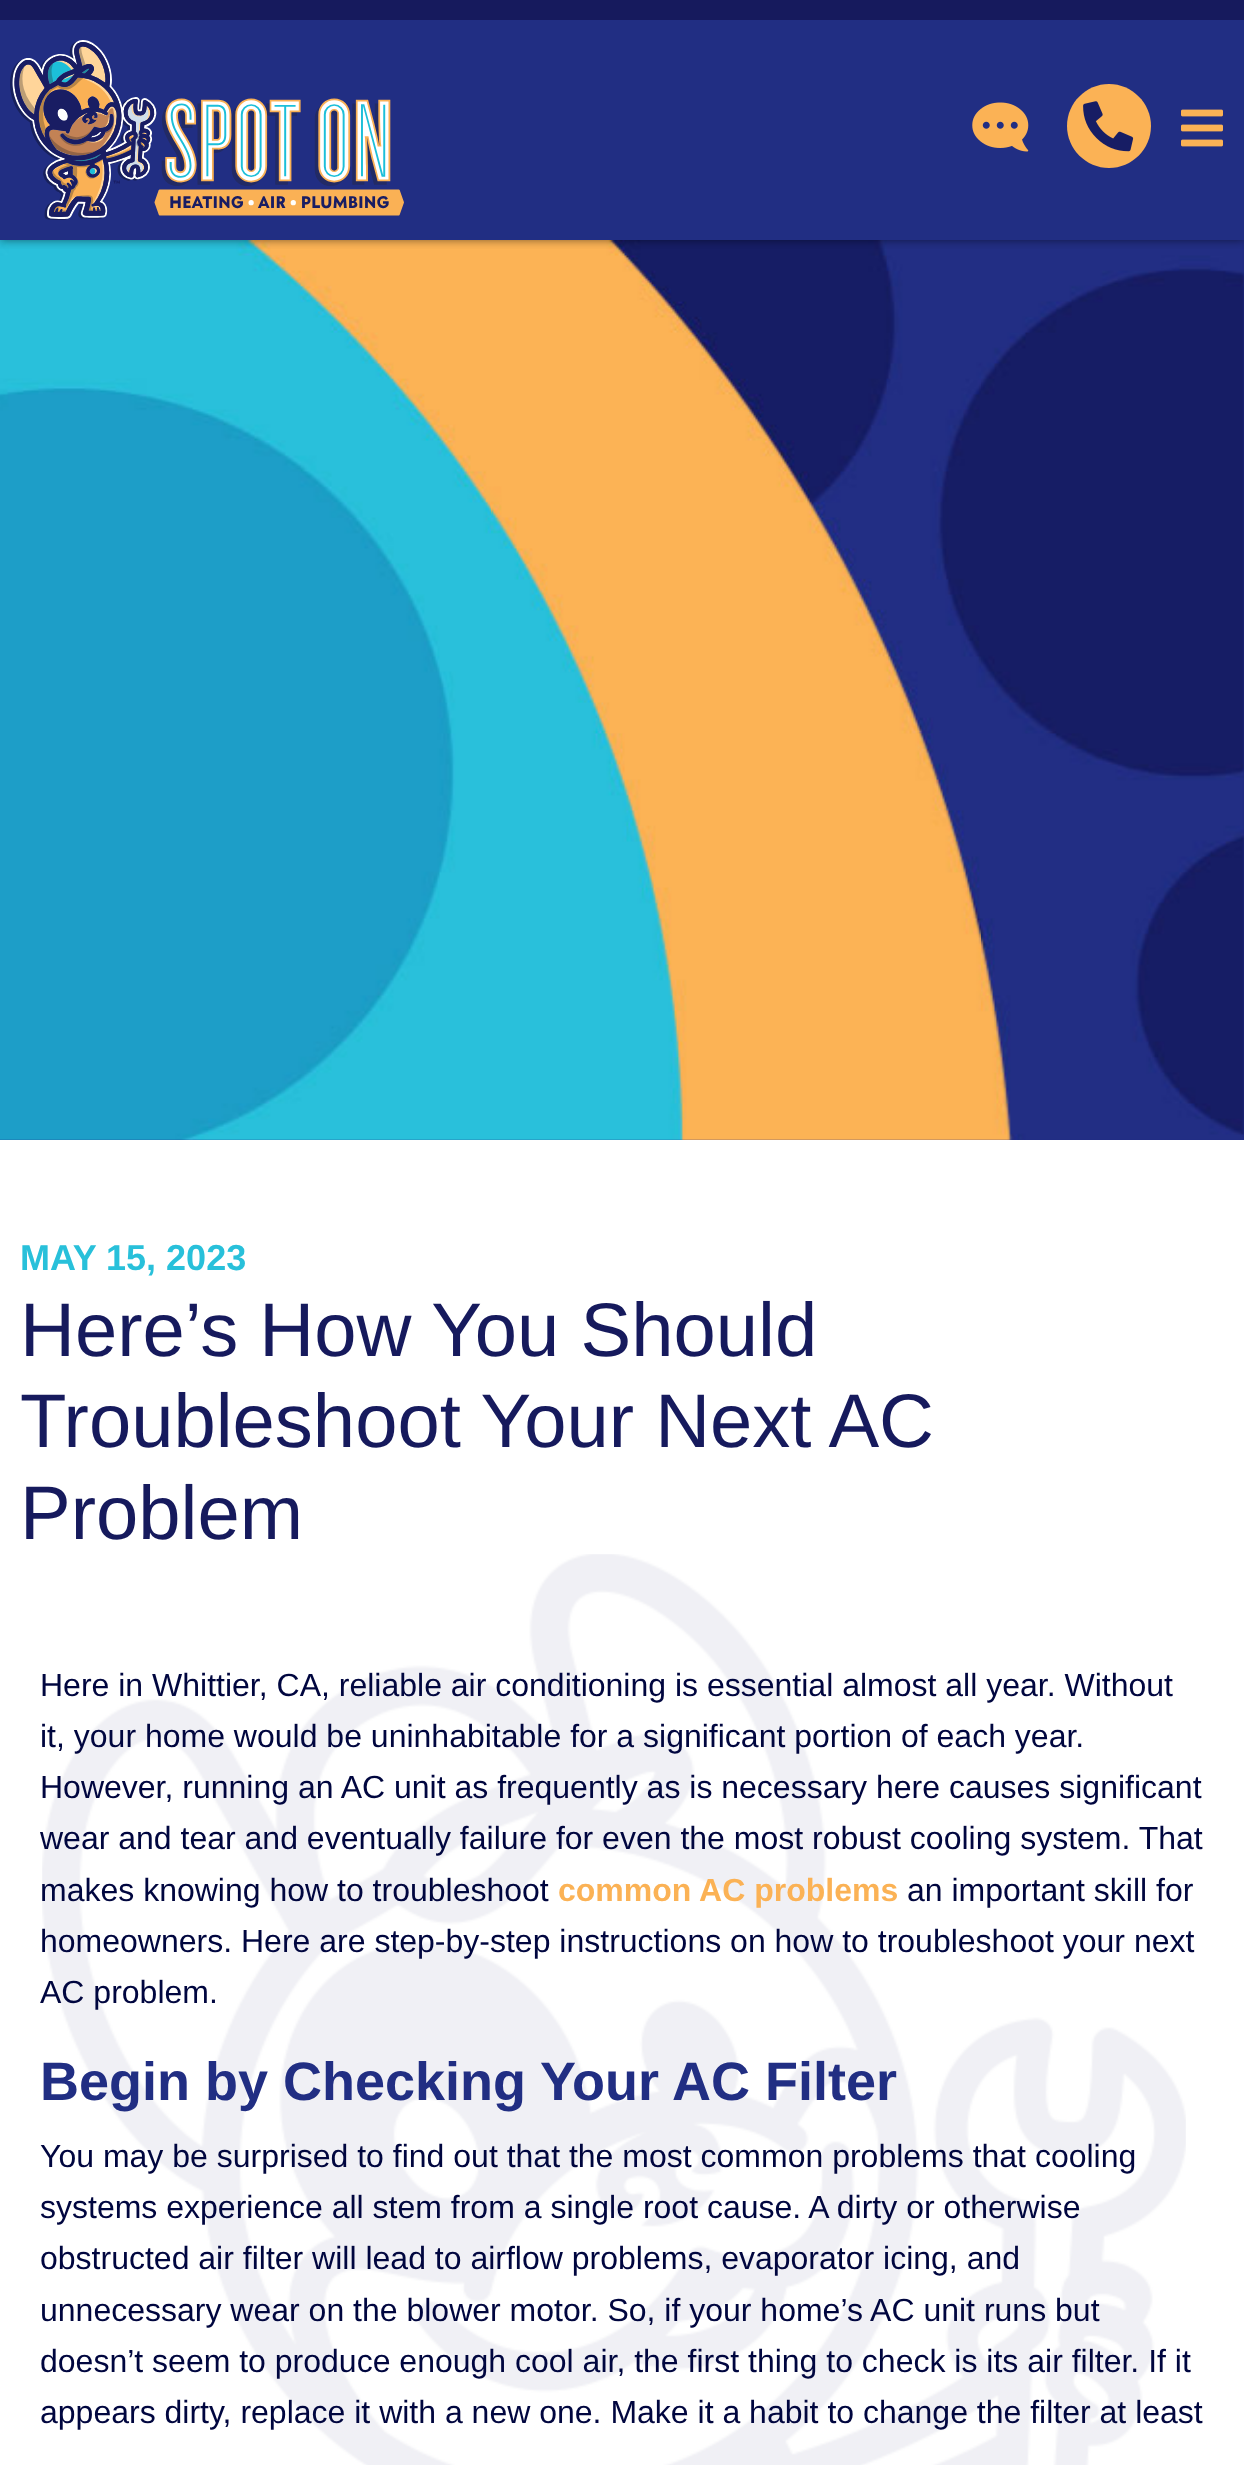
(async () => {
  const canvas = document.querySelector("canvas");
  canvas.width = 1244;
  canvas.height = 2465;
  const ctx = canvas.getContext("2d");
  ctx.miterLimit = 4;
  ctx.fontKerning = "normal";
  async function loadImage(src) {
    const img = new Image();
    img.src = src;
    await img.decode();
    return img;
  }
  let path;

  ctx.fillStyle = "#212e83";
  ctx.fillRect(0, 0, 1244, 2465);
  ctx.drawImage(await loadImage("img/5.png"), 0, 240, 1244, 900);
  ctx.save();
  ctx.beginPath();
  ctx.rect(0, 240, 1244, 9);
  ctx.clip();
  ctx.fillStyle = "rgba(0, 0, 0, 0.5)";
  ctx.filter = "blur(5px)";
  ctx.beginPath();
  ctx.rect(0, 0, 1244, 240);
  ctx.fill();
  ctx.filter = "none";
  ctx.restore();
  ctx.fillStyle = "#161a5d";
  ctx.fillRect(0, 0, 1244, 20);
  ctx.drawImage(await loadImage("img/1.png"), 10, 40, 394, 180);
  ctx.drawImage(await loadImage("img/2.png"), 972, 102, 57, 50);
  ctx.fillStyle = "#fbb255";
  path = new Path2D("M1109 84C1086 84 1067 103 1067 126C1067 149 1086 168 1109 168C1132 168 1151 149 1151 126C1151 103 1132 84 1109 84Z");
  ctx.fill(path);
  ctx.drawImage(await loadImage("img/3.png"), 1083, 101, 51, 51);
  ctx.drawImage(await loadImage("img/4.png"), 1181, 109, 42, 38);
  ctx.fillStyle = "#ffffff";
  ctx.fillRect(0, 1140, 1244, 1325);
  ctx.drawImage(await loadImage("img/6.png"), 42, 1554, 1144, 911);
  ctx.font = "bold 36px Liberation Sans";
  ctx.fillStyle = "#28c0da";
  ctx.fillText("MAY 15, 2023", 20, 1270);
  ctx.font = "76px Liberation Sans";
  ctx.fillStyle = "#161a5d";
  for (const [text, x, y] of [
    ["Here’s How You Should", 20, 1356],
    ["Troubleshoot Your Next AC", 20, 1447],
    ["Problem", 20, 1539],
  ]) {
    ctx.fillText(text, x, y);
  }
  ctx.font = "32px Liberation Sans";
  ctx.fillStyle = "#00063f";
  for (const [text, x, y] of [
    ["Here in Whittier, CA, reliable air conditioning is essential almost all year. Without", 40, 1696],
    ["it, your home would be uninhabitable for a significant portion of each year.", 40, 1747],
    ["However, running an AC unit as frequently as is necessary here causes significant", 40, 1798],
    ["wear and tear and eventually failure for even the most robust cooling system. That", 40, 1849],
    ["makes knowing how to troubleshoot", 40, 1901],
  ]) {
    ctx.fillText(text, x, y);
  }
  ctx.font = "bold 32px Liberation Sans";
  ctx.fillStyle = "#fbb255";
  ctx.fillText("common AC problems", 558, 1901);
  ctx.font = "32px Liberation Sans";
  ctx.fillStyle = "#00063f";
  for (const [text, x, y] of [
    ["an important skill for", 907, 1901],
    ["homeowners. Here are step-by-step instructions on how to troubleshoot your next", 40, 1952],
    ["AC problem.", 40, 2003],
  ]) {
    ctx.fillText(text, x, y);
  }
  ctx.font = "bold 54px Liberation Sans";
  ctx.fillStyle = "#212e83";
  ctx.fillText("Begin by Checking Your AC Filter", 40, 2100);
  ctx.font = "32px Liberation Sans";
  ctx.fillStyle = "#00063f";
  for (const [text, x, y] of [
    ["You may be surprised to find out that the most common problems that cooling", 40, 2167],
    ["systems experience all stem from a single root cause. A dirty or otherwise", 40, 2218],
    ["obstructed air filter will lead to airflow problems, evaporator icing, and", 40, 2269],
    ["unnecessary wear on the blower motor. So, if your home’s AC unit runs but", 40, 2321],
    ["doesn’t seem to produce enough cool air, the first thing to check is its air filter. If it", 40, 2372],
    ["appears dirty, replace it with a new one. Make it a habit to change the filter at least", 40, 2423],
  ]) {
    ctx.fillText(text, x, y);
  }
})();
